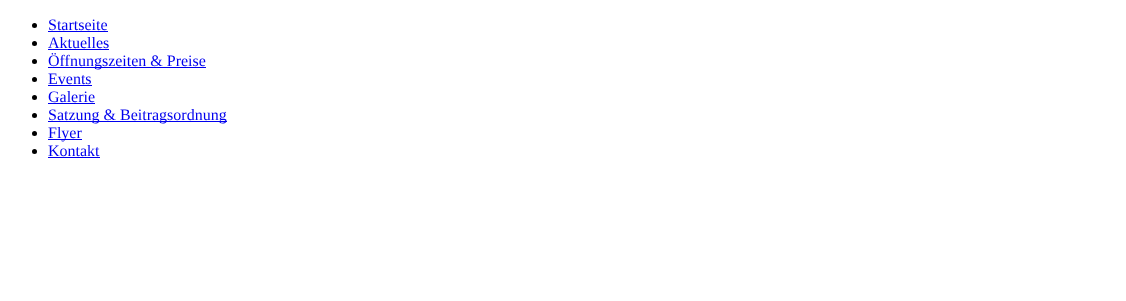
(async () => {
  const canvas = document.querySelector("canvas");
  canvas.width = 1126;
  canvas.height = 301;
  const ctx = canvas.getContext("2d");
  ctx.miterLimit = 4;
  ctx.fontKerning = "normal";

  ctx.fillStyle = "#ffffff";
  ctx.fillRect(0, 0, 1126, 301);
  ctx.fillStyle = "#000000";
  ctx.beginPath();
  ctx.arc(34.5, 25.5, 2.5, 0, Math.PI * 2);
  ctx.fill();
  ctx.fillStyle = "#0000ee";
  ctx.fillRect(48, 31, 60, 1);
  ctx.fillStyle = "#000000";
  ctx.beginPath();
  ctx.arc(34.5, 43.5, 2.5, 0, Math.PI * 2);
  ctx.fill();
  ctx.fillStyle = "#0000ee";
  ctx.fillRect(48, 49, 61, 1);
  ctx.fillStyle = "#000000";
  ctx.beginPath();
  ctx.arc(34.5, 61.5, 2.5, 0, Math.PI * 2);
  ctx.fill();
  ctx.fillStyle = "#0000ee";
  ctx.fillRect(48, 67, 158, 1);
  ctx.fillStyle = "#000000";
  ctx.beginPath();
  ctx.arc(34.5, 79.5, 2.5, 0, Math.PI * 2);
  ctx.fill();
  ctx.fillStyle = "#0000ee";
  ctx.fillRect(48, 85, 44, 1);
  ctx.fillStyle = "#000000";
  ctx.beginPath();
  ctx.arc(34.5, 97.5, 2.5, 0, Math.PI * 2);
  ctx.fill();
  ctx.fillStyle = "#0000ee";
  ctx.fillRect(48, 103, 47, 1);
  ctx.fillStyle = "#000000";
  ctx.beginPath();
  ctx.arc(34.5, 115.5, 2.5, 0, Math.PI * 2);
  ctx.fill();
  ctx.fillStyle = "#0000ee";
  ctx.fillRect(48, 121, 179, 1);
  ctx.fillStyle = "#000000";
  ctx.beginPath();
  ctx.arc(34.5, 133.5, 2.5, 0, Math.PI * 2);
  ctx.fill();
  ctx.fillStyle = "#0000ee";
  ctx.fillRect(48, 139, 34, 1);
  ctx.fillStyle = "#000000";
  ctx.beginPath();
  ctx.arc(34.5, 151.5, 2.5, 0, Math.PI * 2);
  ctx.fill();
  ctx.fillStyle = "#0000ee";
  ctx.fillRect(48, 157, 52, 1);
  ctx.font = "16px Liberation Serif";
  for (const [text, x, y] of [
    ["Startseite", 48, 30],
    ["Aktuelles", 48, 48],
    ["Öffnungszeiten & Preise", 48, 66],
    ["Events", 48, 84],
    ["Galerie", 48, 102],
    ["Satzung & Beitragsordnung", 48, 120],
    ["Flyer", 48, 138],
    ["Kontakt", 48, 156],
  ]) {
    ctx.fillText(text, x, y);
  }
})();
